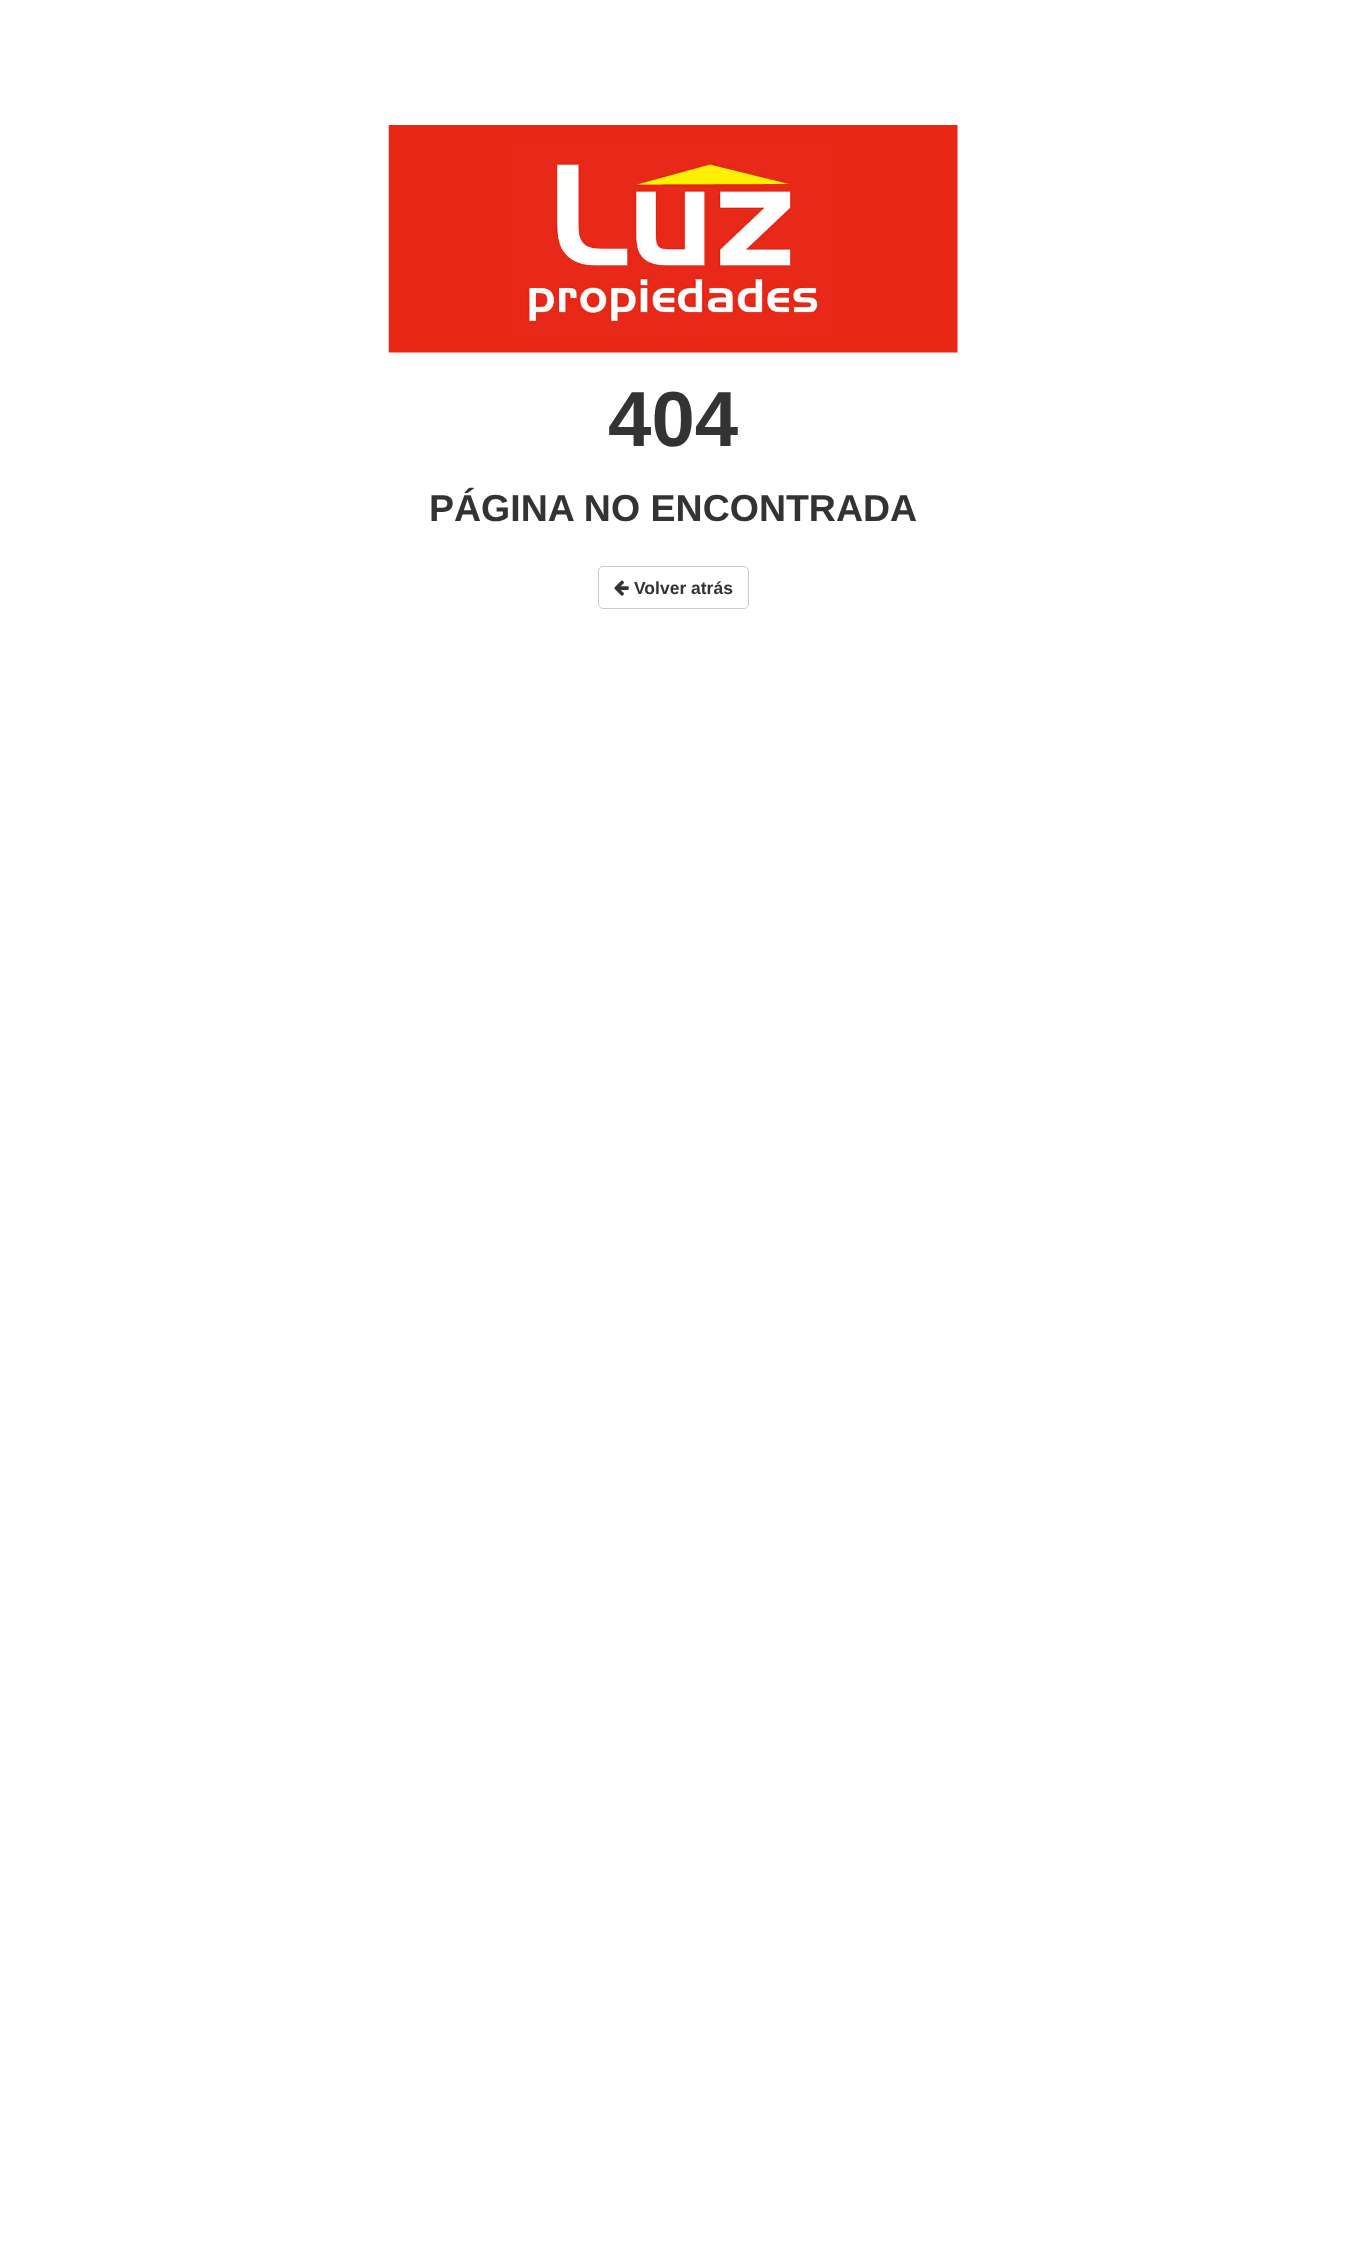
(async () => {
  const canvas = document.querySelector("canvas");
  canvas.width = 1346;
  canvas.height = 2241;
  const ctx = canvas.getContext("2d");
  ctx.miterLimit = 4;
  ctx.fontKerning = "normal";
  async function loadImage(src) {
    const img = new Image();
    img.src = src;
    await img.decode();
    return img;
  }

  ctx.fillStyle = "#ffffff";
  ctx.fillRect(0, 0, 1346, 2241);
  ctx.drawImage(await loadImage("img/1.png"), 388, 125, 570, 228);
  ctx.beginPath();
  ctx.roundRect(598.5, 566.5, 150, 42, 4.5);
  ctx.strokeStyle = "#cccccc";
  ctx.stroke();
  ctx.drawImage(await loadImage("img/2.png"), 614, 580, 15, 16);
  ctx.font = "bold 78px Liberation Sans";
  ctx.fillStyle = "#333333";
  ctx.fillText("404", 608, 446);
  ctx.font = "bold 37.5px Liberation Sans";
  ctx.fillText("PÁGINA NO ENCONTRADA", 429, 521);
  ctx.font = "bold 17.5px Liberation Sans";
  ctx.fillText("Volver atrás", 634, 594);
})();
